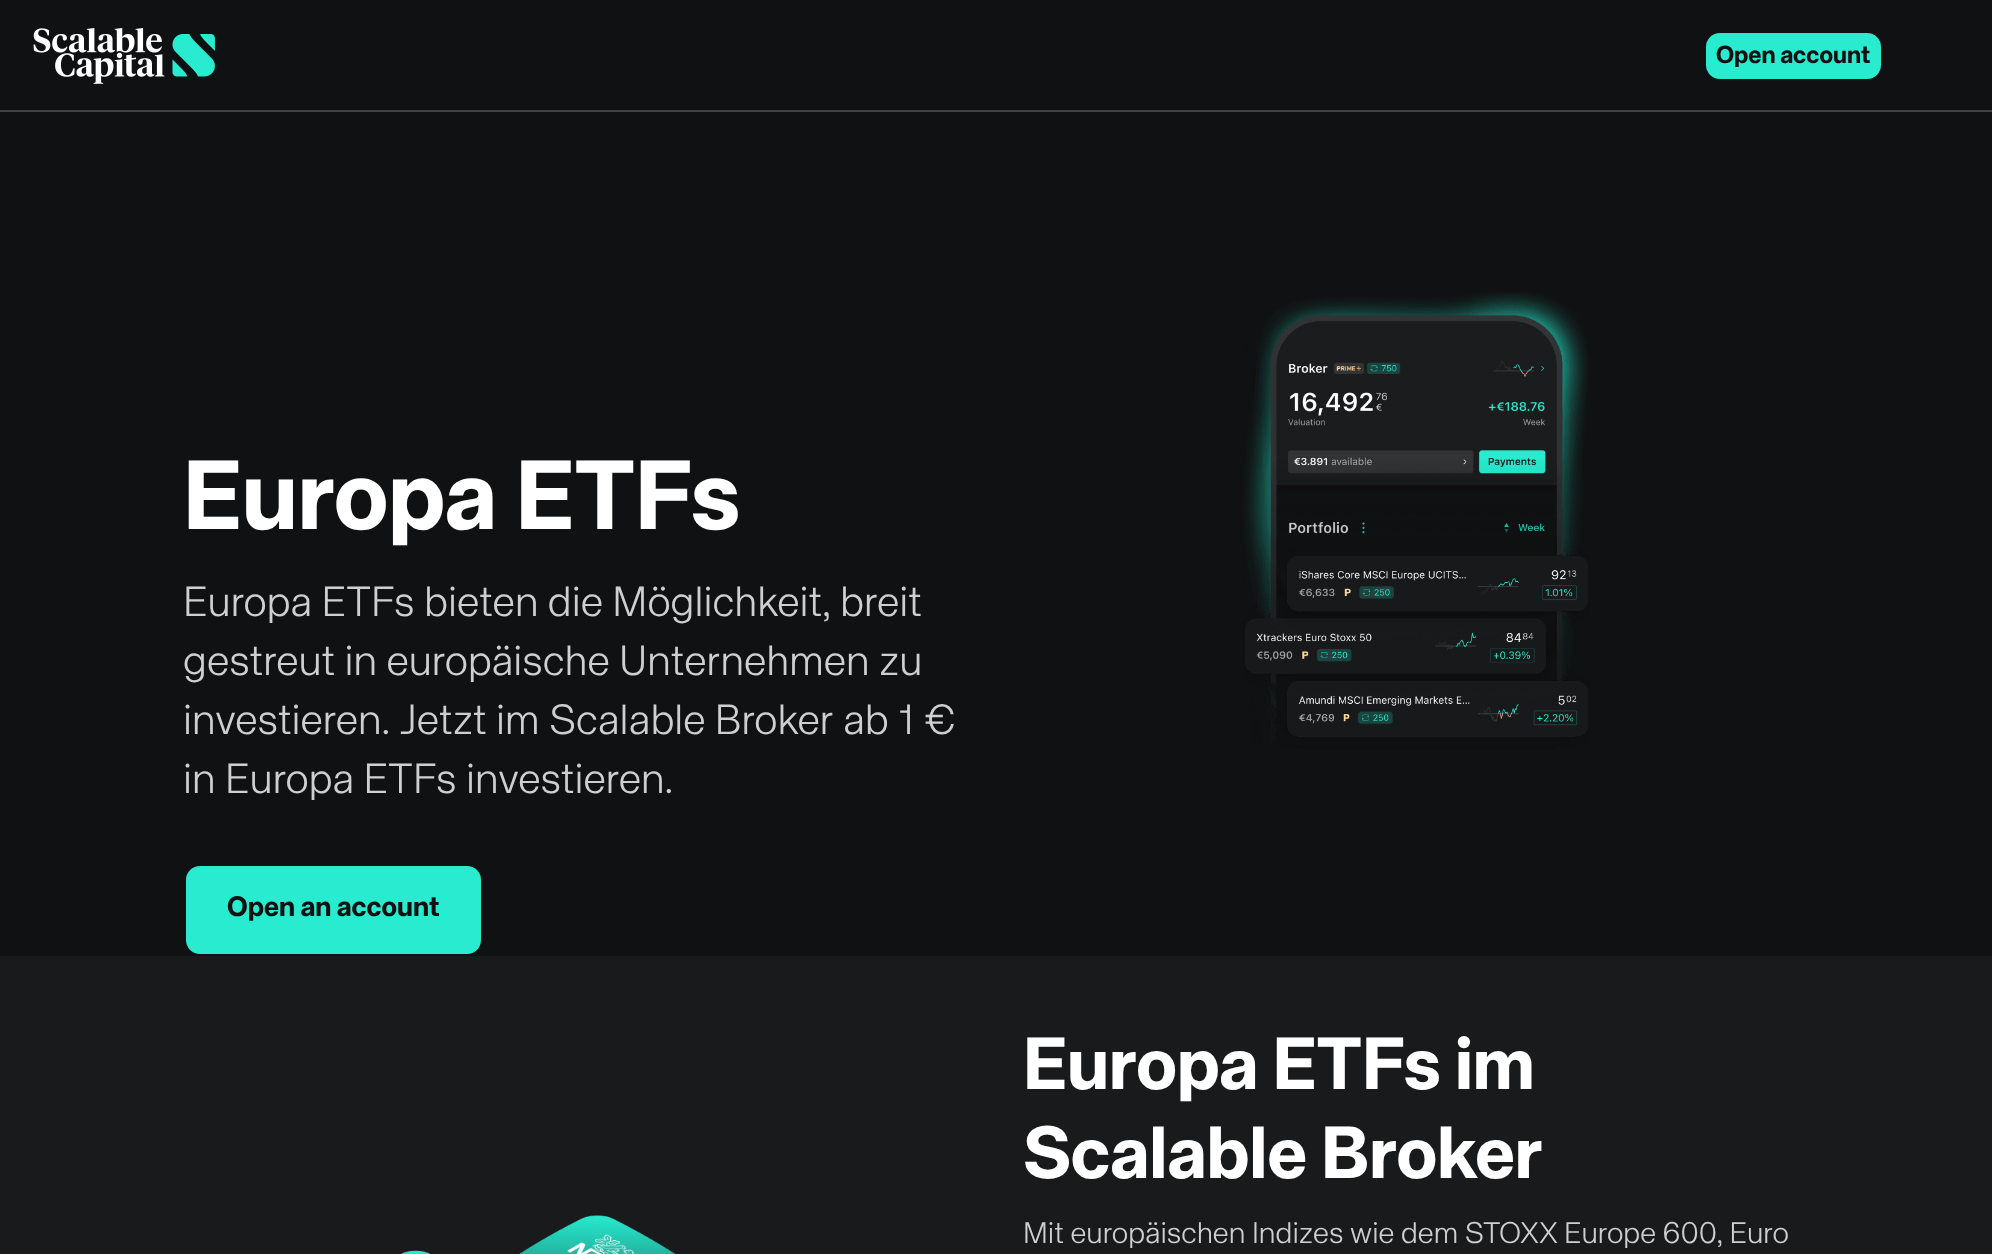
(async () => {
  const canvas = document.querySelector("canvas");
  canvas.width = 1992;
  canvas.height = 1254;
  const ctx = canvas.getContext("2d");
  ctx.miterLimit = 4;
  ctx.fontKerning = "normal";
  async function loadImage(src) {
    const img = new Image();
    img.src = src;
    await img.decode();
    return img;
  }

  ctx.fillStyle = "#101112";
  ctx.fillRect(0, 0, 1992, 1254);
  ctx.fillStyle = "#404141";
  ctx.fillRect(0, 110, 1992, 2);
  ctx.drawImage(await loadImage("img/1.png"), 33, 28, 182, 56);
  ctx.fillStyle = "#28ebcf";
  ctx.beginPath();
  ctx.roundRect(1706, 33, 175, 46, 14);
  ctx.fill();
  ctx.beginPath();
  ctx.roundRect(186, 866, 295, 88, 14);
  ctx.fill();
  ctx.drawImage(await loadImage("img/2.png"), 1243, 292, 346, 457);
  ctx.fillStyle = "#191a1c";
  ctx.fillRect(0, 956, 1992, 298);
  ctx.drawImage(await loadImage("img/3.png"), 401, 1215, 275, 39);
  ctx.font = "bold 24.5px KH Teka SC";
  ctx.fillStyle = "#101112";
  ctx.fillText("Open account", 1716, 63);
  ctx.font = "bold 98px KH Teka SC";
  ctx.fillStyle = "#ffffff";
  ctx.fillText("Europa ETFs", 183, 529);
  ctx.font = "300 42px KH Teka SC";
  ctx.fillStyle = "#cfcfd0";
  for (const [text, x, y] of [
    ["Europa ETFs bieten die Möglichkeit, breit", 183, 616],
    ["gestreut in europäische Unternehmen zu", 183, 675],
    ["investieren. Jetzt im Scalable Broker ab 1 €", 183, 734],
    ["in Europa ETFs investieren.", 183, 793],
  ]) {
    ctx.fillText(text, x, y);
  }
  ctx.font = "bold 28px KH Teka SC";
  ctx.fillStyle = "#101112";
  ctx.fillText("Open an account", 227, 916);
  ctx.font = "bold 73.5px KH Teka SC";
  ctx.fillStyle = "#ffffff";
  ctx.fillText("Europa ETFs im", 1023, 1089);
  ctx.fillText("Scalable Broker", 1023, 1178);
  ctx.font = "300 29.75px KH Teka SC";
  ctx.fillStyle = "#cfcfd0";
  ctx.fillText("Mit europäischen Indizes wie dem STOXX Europe 600, Euro", 1023, 1243);
})();
